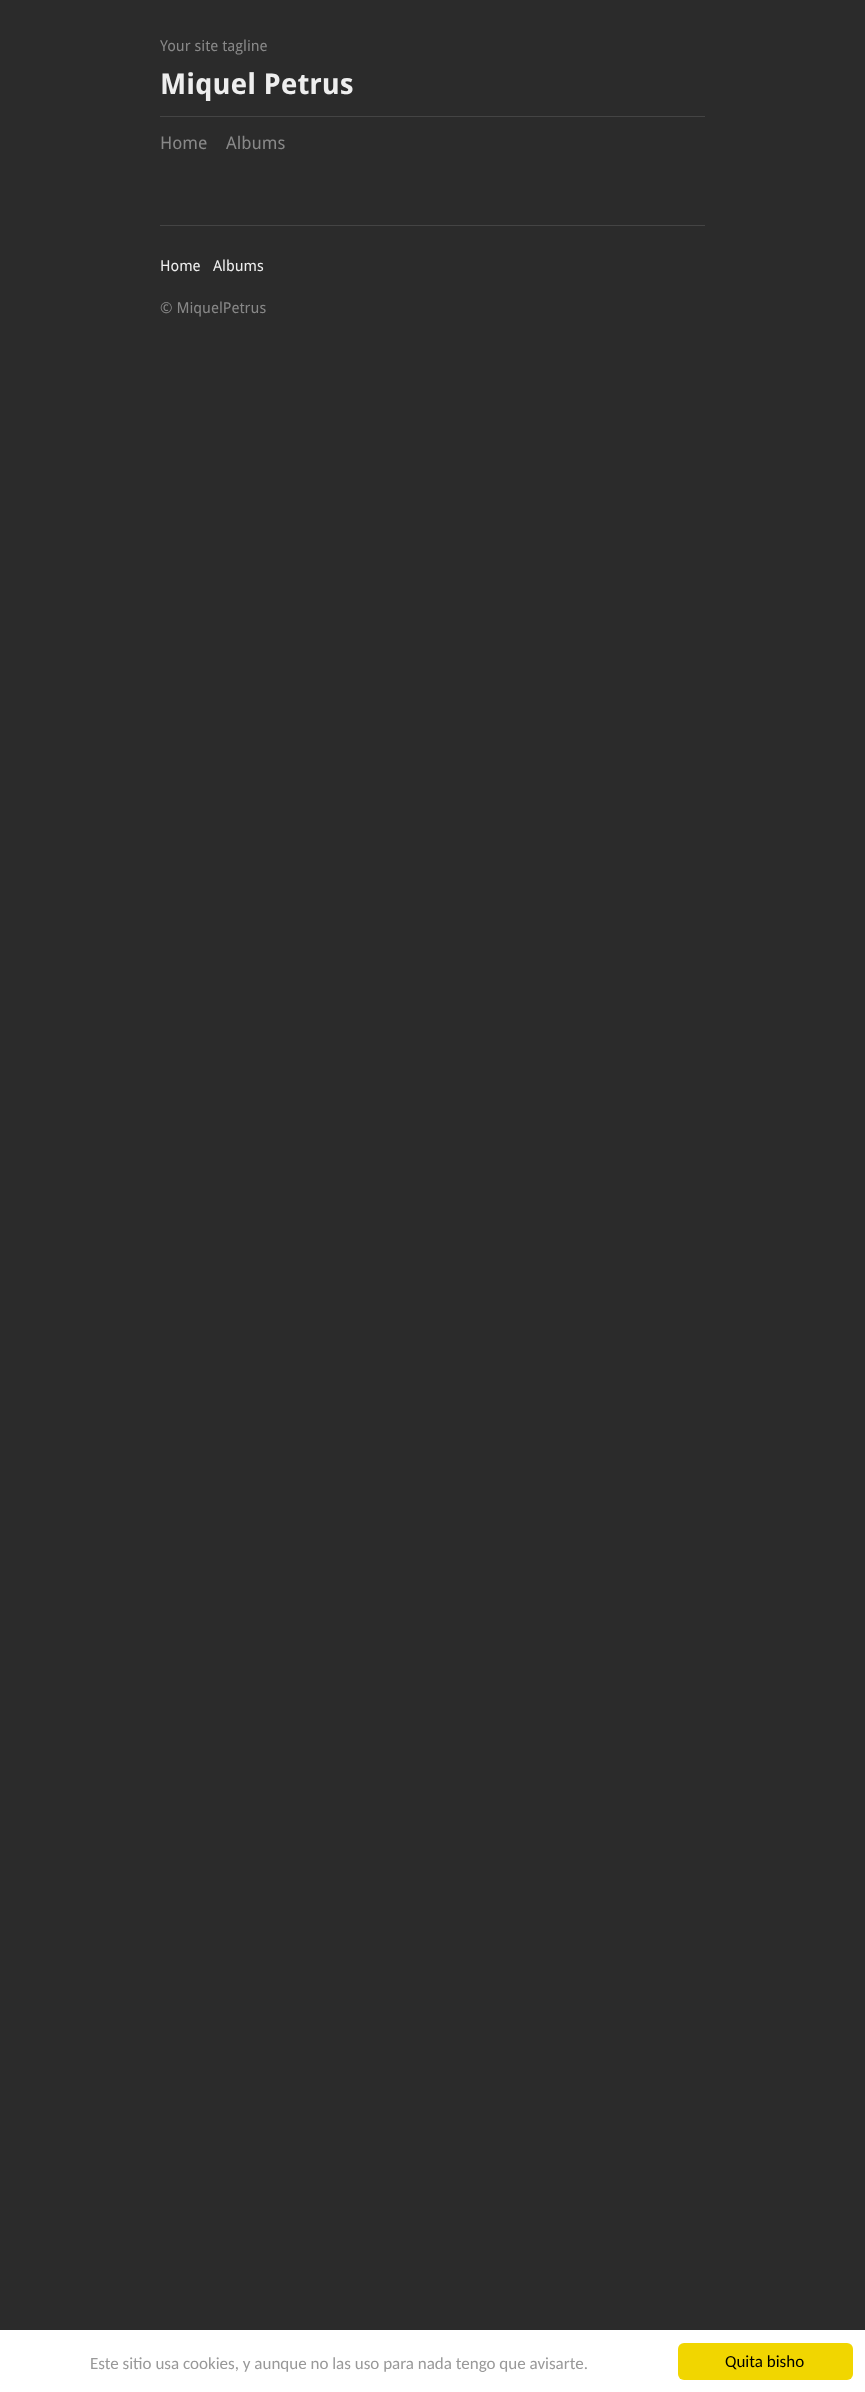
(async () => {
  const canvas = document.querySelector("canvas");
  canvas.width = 865;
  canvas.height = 2392;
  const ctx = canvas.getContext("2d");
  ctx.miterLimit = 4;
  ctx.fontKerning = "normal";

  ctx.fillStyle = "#2b2b2b";
  ctx.fillRect(0, 0, 865, 2392);
  for (const [x, y, w, h, color] of [
    [160, 116, 545, 1, "#444444"],
    [160, 225, 545, 1, "#444444"],
    [0, 2330, 865, 62, "#ffffff"],
  ]) {
    ctx.fillStyle = color;
    ctx.fillRect(x, y, w, h);
  }
  ctx.fillStyle = "#f1d600";
  ctx.beginPath();
  ctx.roundRect(678, 2343, 175, 37, 6);
  ctx.fill();
  ctx.font = "15px Droid Sans";
  ctx.fillStyle = "#888888";
  ctx.fillText("Your site tagline", 160, 51);
  ctx.font = "bold 28.75px Droid Sans";
  ctx.fillStyle = "#eeeeee";
  ctx.fillText("Miquel Petrus", 160, 94);
  ctx.font = "17.5px Droid Sans";
  ctx.fillStyle = "#888888";
  ctx.fillText("Home", 160, 149);
  ctx.fillText("Albums", 226, 149);
  ctx.font = "15px Droid Sans";
  ctx.fillStyle = "#eeeeee";
  ctx.fillText("Home", 160, 271);
  ctx.fillText("Albums", 213, 271);
  ctx.fillStyle = "#888888";
  ctx.fillText("© MiquelPetrus", 160, 313);
  ctx.font = "17px Carlito";
  ctx.fillStyle = "#999999";
  ctx.fillText("Este sitio usa cookies, y aunque no las uso para nada tengo que avisarte.", 90, 2369);
  ctx.fillStyle = "#000000";
  ctx.fillText("Quita bisho", 725, 2367);
})();
